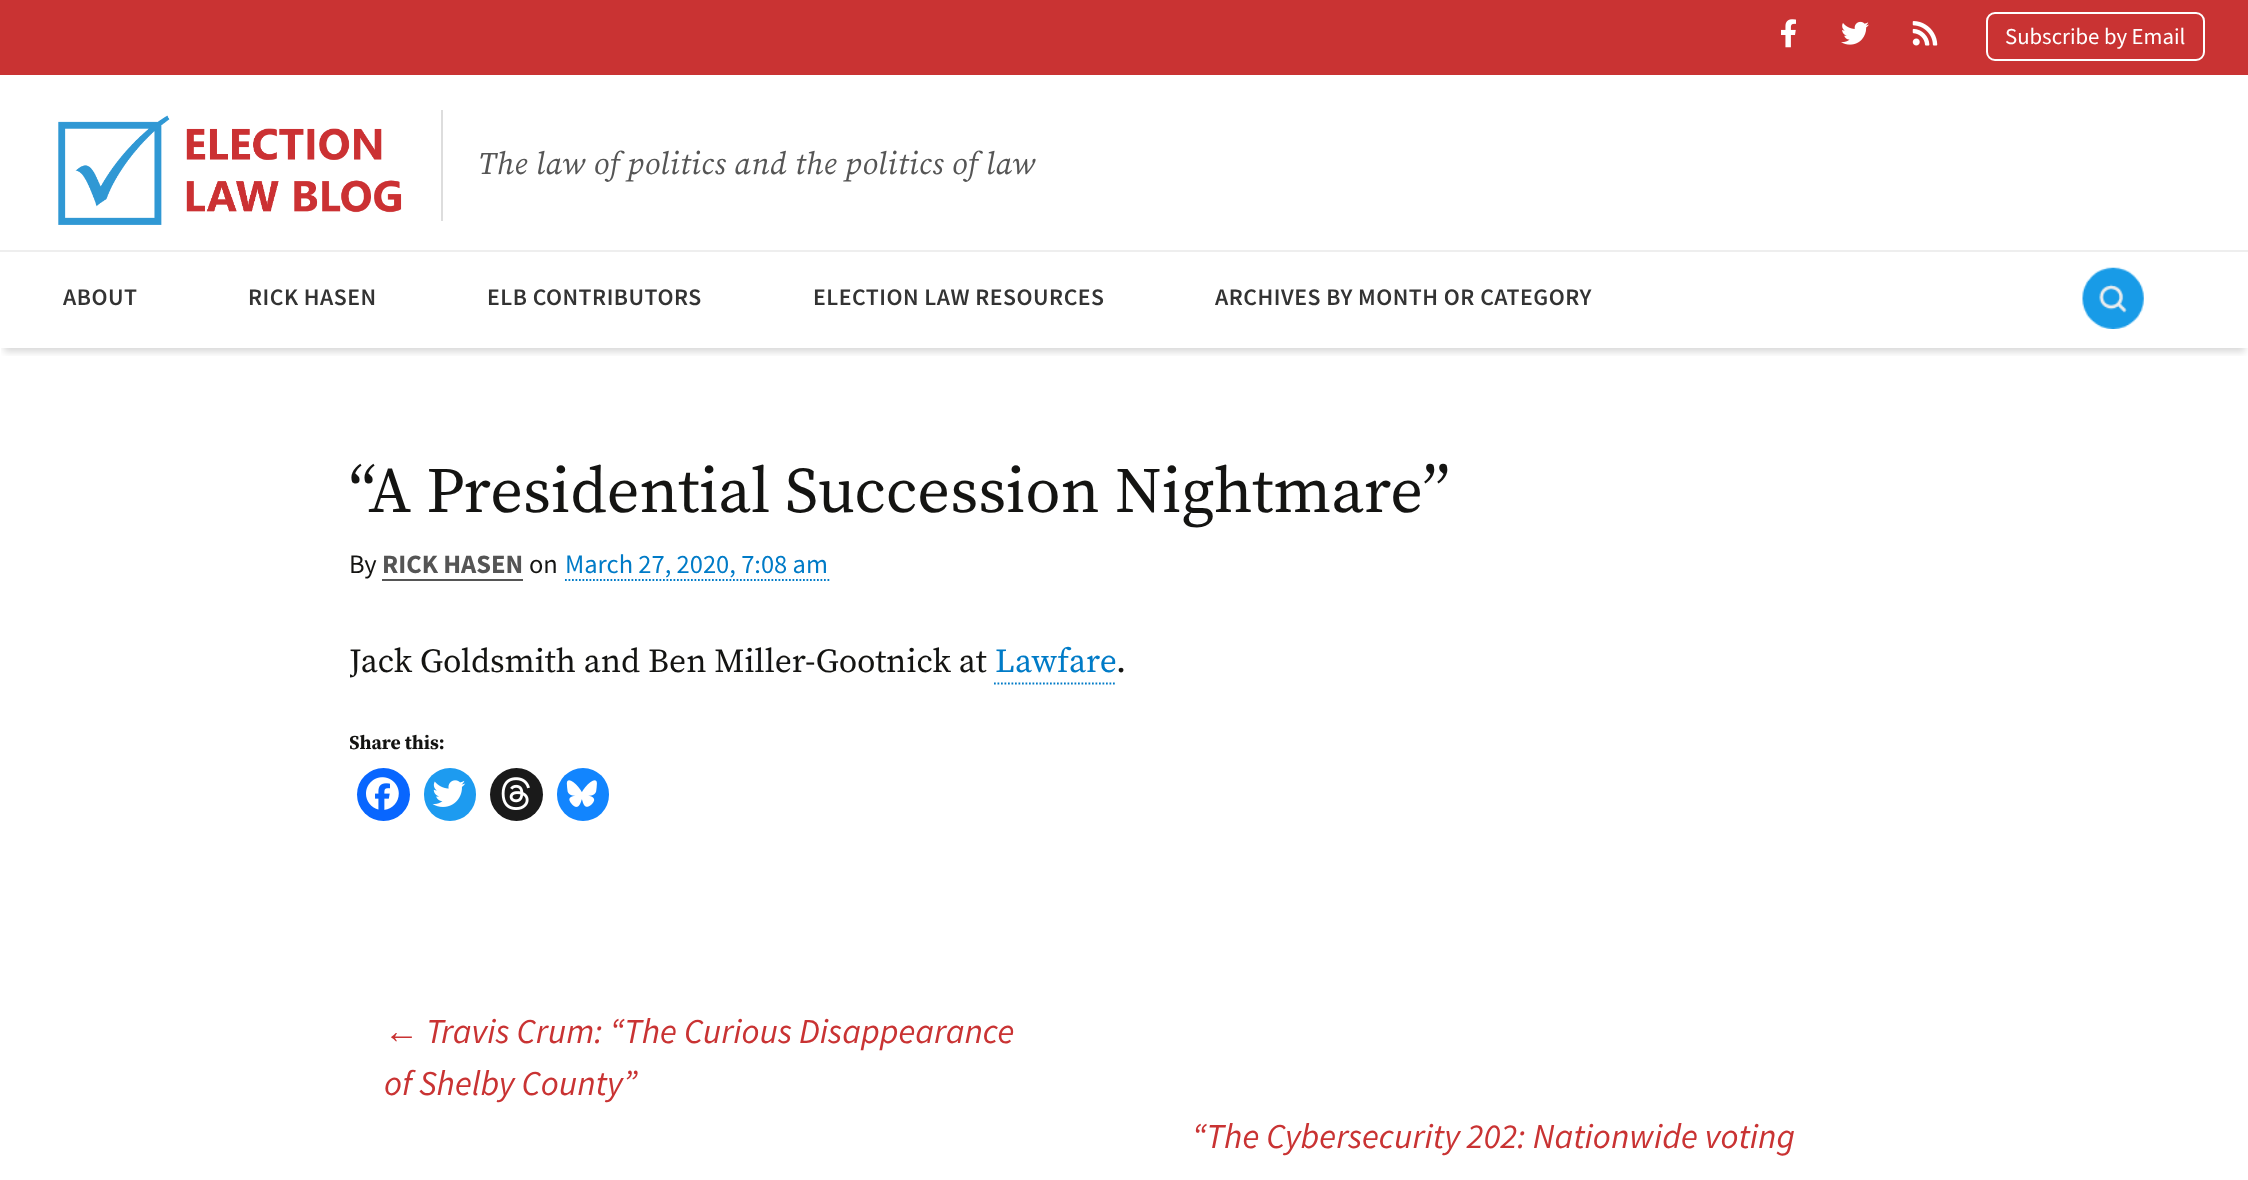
(async () => {
  const canvas = document.querySelector("canvas");
  canvas.width = 2248;
  canvas.height = 1180;
  const ctx = canvas.getContext("2d");
  ctx.miterLimit = 4;
  ctx.fontKerning = "normal";
  async function loadImage(src) {
    const img = new Image();
    img.src = src;
    await img.decode();
    return img;
  }
  let path;

  ctx.fillStyle = "#ffffff";
  ctx.fillRect(0, 0, 2248, 1180);
  ctx.save();
  ctx.beginPath();
  ctx.rect(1, 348, 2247, 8);
  ctx.clip();
  ctx.fillStyle = "rgba(0, 0, 0, 0.15)";
  ctx.filter = "blur(3.5px)";
  ctx.beginPath();
  ctx.rect(4, 11, 2241, 341);
  ctx.fill();
  ctx.filter = "none";
  ctx.restore();
  ctx.fillStyle = "#c93333";
  ctx.fillRect(0, 0, 2248, 75);
  ctx.drawImage(await loadImage("img/1.png"), 1781, 19, 15, 29);
  ctx.drawImage(await loadImage("img/2.png"), 1841, 21, 28, 24);
  ctx.drawImage(await loadImage("img/3.png"), 1912, 21, 26, 25);
  ctx.beginPath();
  ctx.roundRect(1987, 13, 217, 47, 8);
  ctx.strokeStyle = "#ffffff";
  ctx.lineWidth = 2;
  ctx.stroke();
  ctx.drawImage(await loadImage("img/4.png"), 58, 115, 344, 110);
  ctx.fillStyle = "#dddddd";
  ctx.fillRect(441, 110, 2, 111);
  ctx.fillStyle = "#eeeeee";
  ctx.fillRect(0, 250, 2248, 2);
  ctx.drawImage(await loadImage("img/5.png"), 2082, 267, 62, 62);
  ctx.fillStyle = "#555555";
  ctx.fillRect(382, 579, 141, 2);
  path = new Path2D("M565 580H829.5");
  ctx.strokeStyle = "#007bc7";
  ctx.lineWidth = 1.8;
  ctx.setLineDash([1.75, 1.75]);
  ctx.stroke(path);
  path = new Path2D("M994 683.5H1115");
  ctx.stroke(path);
  ctx.fillStyle = "#0866ff";
  ctx.beginPath();
  ctx.arc(383.5, 794.5, 26.5, 0, Math.PI * 2);
  ctx.fill();
  ctx.drawImage(await loadImage("img/6.png"), 366, 777, 33, 33);
  ctx.fillStyle = "#1d9bf0";
  ctx.beginPath();
  ctx.roundRect(424, 768, 52, 53, 26);
  ctx.fill();
  ctx.drawImage(await loadImage("img/7.png"), 432, 780, 34, 27);
  ctx.fillStyle = "#1a1a1a";
  ctx.beginPath();
  ctx.arc(516.5, 794.5, 26.5, 0, Math.PI * 2);
  ctx.fill();
  ctx.drawImage(await loadImage("img/8.png"), 501, 777, 29, 33);
  ctx.fillStyle = "#1285fe";
  ctx.beginPath();
  ctx.roundRect(557, 768, 52, 53, 26);
  ctx.fill();
  ctx.drawImage(await loadImage("img/9.png"), 566, 780, 31, 27);
  ctx.font = "22.75px Source Sans Pro";
  ctx.fillStyle = "#ffffff";
  ctx.fillText("Subscribe by Email", 2005, 44);
  ctx.letterSpacing = "0.65px";
  ctx.font = "italic 31.5px Source Serif Pro";
  ctx.fillStyle = "#555555";
  ctx.fillText("The law of politics and the politics of law", 478, 174);
  ctx.letterSpacing = "0.5px";
  ctx.font = "600 23.75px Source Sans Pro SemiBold";
  ctx.fillStyle = "#333333";
  for (const [text, x, y] of [
    ["ABOUT", 63, 305],
    ["RICK HASEN", 248, 305],
    ["ELB CONTRIBUTORS", 487, 305],
    ["ELECTION LAW RESOURCES", 813, 305],
    ["ARCHIVES BY MONTH OR CATEGORY", 1215, 305],
  ]) {
    ctx.fillText(text, x, y);
  }
  ctx.letterSpacing = "0px";
  ctx.font = "64.4px Source Serif Pro";
  ctx.fillStyle = "#141412";
  ctx.fillText("“A Presidential Succession Nightmare”", 349, 512);
  ctx.font = "26.5px Source Sans Pro";
  ctx.fillText("By", 349, 573);
  ctx.font = "bold 26.5px Source Sans Pro";
  ctx.fillStyle = "#555555";
  ctx.fillText("RICK HASEN", 382, 573);
  ctx.font = "26.5px Source Sans Pro";
  ctx.fillStyle = "#141412";
  ctx.fillText("on", 529, 573);
  ctx.fillStyle = "#007bc7";
  ctx.fillText("March 27, 2020, 7:08 am", 565, 573);
  ctx.save();
  ctx.beginPath();
  ctx.rect(350, 348, 1551, 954);
  ctx.clip();
  ctx.font = "33.6px Source Serif Pro";
  ctx.fillStyle = "#141412";
  ctx.fillText("Jack Goldsmith and Ben Miller-Gootnick at", 349, 672);
  ctx.restore();
  ctx.font = "33.6px Source Serif Pro";
  ctx.fillText("Lawfare", 995, 672);
  ctx.fillStyle = "#141412";
  ctx.fillText(".", 1116, 672);
  ctx.save();
  ctx.beginPath();
  ctx.rect(350, 348, 1551, 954);
  ctx.clip();
  ctx.font = "bold 19.5px Source Serif Pro";
  ctx.fillText("Share this:", 349, 749);
  ctx.restore();
  ctx.font = "italic 35px Liberation Sans";
  ctx.fillStyle = "#c93333";
  ctx.fillText("←", 384, 1043);
  ctx.font = "italic 35px Source Sans Pro";
  for (const [text, x, y] of [
    ["Travis Crum: “The Curious Disappearance", 426, 1043],
    ["of Shelby County”", 384, 1095],
    ["“The Cybersecurity 202: Nationwide voting", 1192, 1148],
  ]) {
    ctx.fillText(text, x, y);
  }
})();
